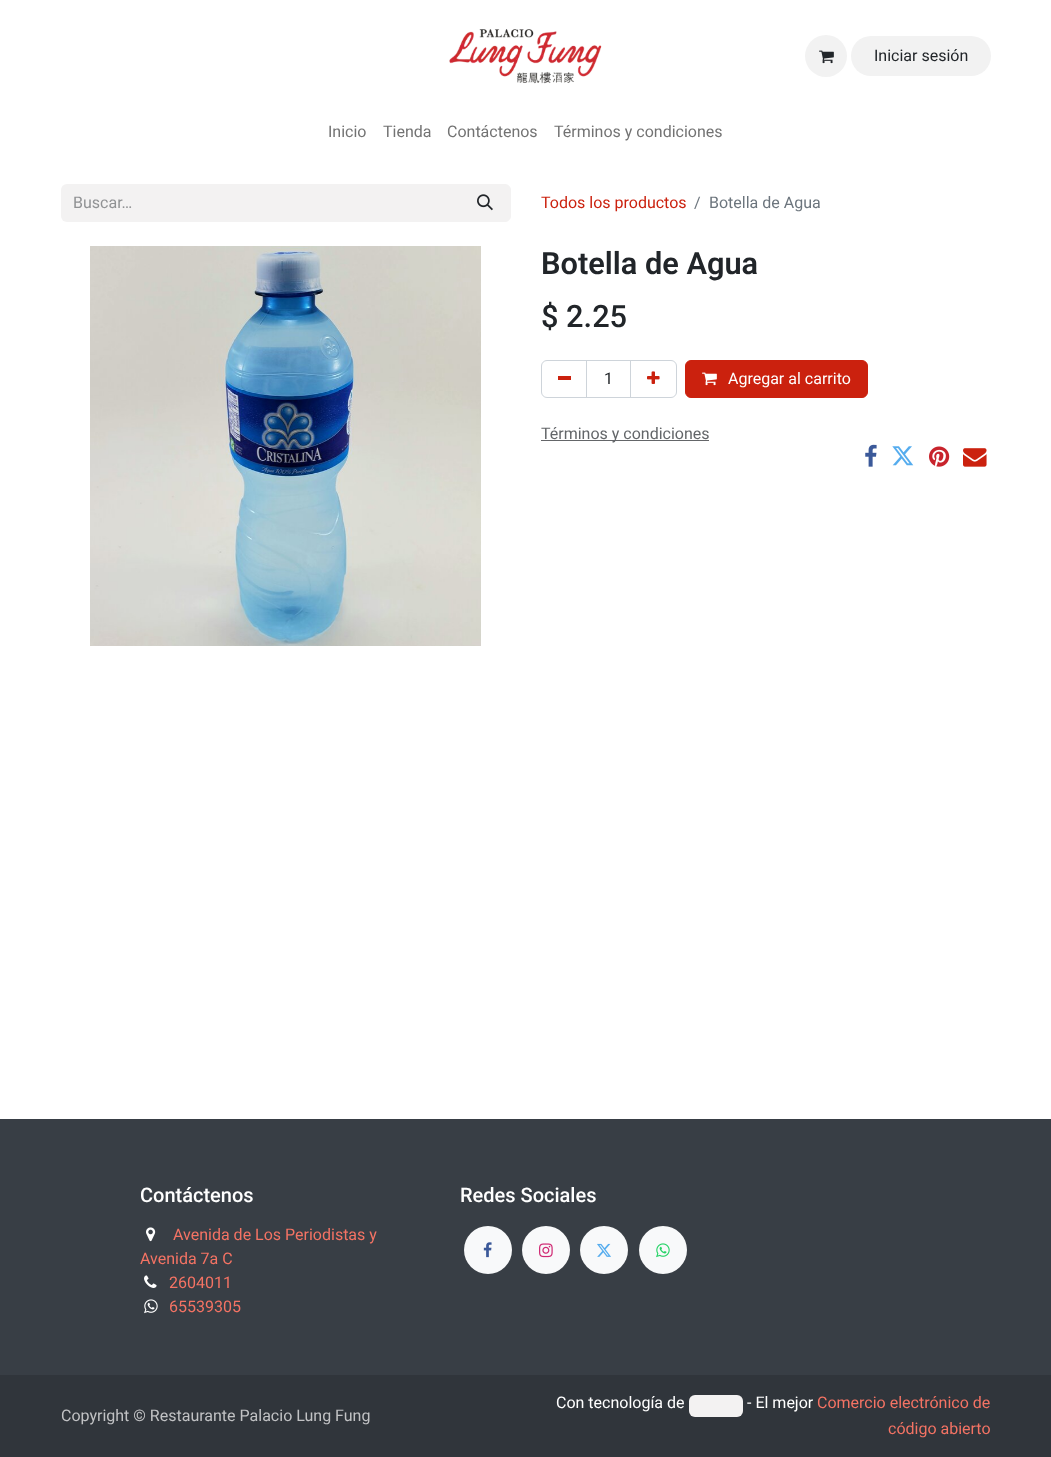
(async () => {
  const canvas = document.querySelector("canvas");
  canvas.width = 1051;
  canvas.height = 1457;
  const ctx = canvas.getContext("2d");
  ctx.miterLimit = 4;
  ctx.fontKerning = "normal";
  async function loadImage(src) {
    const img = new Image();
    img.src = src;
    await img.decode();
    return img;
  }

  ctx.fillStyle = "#ffffff";
  ctx.fillRect(0, 0, 1051, 1457);
  ctx.drawImage(await loadImage("img/1.png"), 449, 29, 153, 55);
  ctx.fillStyle = "#f2f2f2";
  ctx.beginPath();
  ctx.arc(826, 56, 21, 0, Math.PI * 2);
  ctx.fill();
  ctx.drawImage(await loadImage("img/2.png"), 819, 50, 15, 14);
  ctx.beginPath();
  ctx.roundRect(851, 36, 140, 40, 20);
  ctx.fill();
  ctx.fillStyle = "#f3f2f2";
  ctx.beginPath();
  ctx.roundRect(61, 184, 400, 38, [6, 0, 0, 6]);
  ctx.fill();
  ctx.beginPath();
  ctx.roundRect(460.5, 184.5, 50, 37, [0, 5.5, 5.5, 0]);
  ctx.fill();
  ctx.strokeStyle = "#f3f2f2";
  ctx.stroke();
  ctx.drawImage(await loadImage("img/3.png"), 477, 194, 16, 17);
  ctx.drawImage(await loadImage("img/4.png"), 90, 246, 391, 400);
  ctx.strokeStyle = "#ced4da";
  ctx.strokeRect(586.5, 360.5, 44, 37);
  ctx.beginPath();
  ctx.roundRect(541.5, 360.5, 45, 37, [5.5, 0, 0, 5.5]);
  ctx.stroke();
  ctx.fillStyle = "#cb210e";
  ctx.fillRect(558, 376, 13, 4);
  ctx.beginPath();
  ctx.roundRect(630.5, 360.5, 46, 37, [0, 5.5, 5.5, 0]);
  ctx.stroke();
  ctx.drawImage(await loadImage("img/5.png"), 647, 371, 13, 13);
  ctx.beginPath();
  ctx.roundRect(685.5, 360.5, 182, 37, 5.5);
  ctx.fill();
  ctx.strokeStyle = "#cb210e";
  ctx.stroke();
  ctx.drawImage(await loadImage("img/6.png"), 702, 372, 15, 14);
  ctx.fillStyle = "#646669";
  ctx.fillRect(541, 440, 168, 1);
  ctx.drawImage(await loadImage("img/7.png"), 865, 444, 12, 23);
  ctx.drawImage(await loadImage("img/8.png"), 892, 446, 22, 20);
  ctx.drawImage(await loadImage("img/9.png"), 929, 446, 21, 21);
  ctx.drawImage(await loadImage("img/10.png"), 963, 448, 24, 19);
  ctx.fillStyle = "#383e45";
  ctx.fillRect(0, 1119, 1051, 256);
  ctx.drawImage(await loadImage("img/11.png"), 146, 1227, 10, 15);
  ctx.drawImage(await loadImage("img/12.png"), 144, 1275, 13, 13);
  ctx.drawImage(await loadImage("img/13.png"), 144, 1299, 14, 15);
  ctx.fillStyle = "#f8f9fa";
  ctx.beginPath();
  ctx.arc(488, 1250, 24, 0, Math.PI * 2);
  ctx.fill();
  ctx.drawImage(await loadImage("img/14.png"), 483, 1242, 9, 16);
  ctx.beginPath();
  ctx.arc(546, 1250, 24, 0, Math.PI * 2);
  ctx.fill();
  ctx.drawImage(await loadImage("img/15.png"), 539, 1243, 14, 15);
  ctx.beginPath();
  ctx.arc(604, 1250, 24, 0, Math.PI * 2);
  ctx.fill();
  ctx.drawImage(await loadImage("img/16.png"), 597, 1243, 14, 14);
  ctx.beginPath();
  ctx.arc(663, 1250, 24, 0, Math.PI * 2);
  ctx.fill();
  ctx.drawImage(await loadImage("img/17.png"), 656, 1243, 14, 15);
  ctx.fillStyle = "#30353b";
  ctx.fillRect(0, 1375, 1051, 82);
  ctx.fillStyle = "#f3f2f2";
  ctx.beginPath();
  ctx.roundRect(689, 1395, 54, 22, 6);
  ctx.fill();
  ctx.font = "16px Roboto";
  ctx.fillStyle = "#212529";
  ctx.fillText("Iniciar sesión", 874, 61);
  ctx.fillStyle = "#737373";
  for (const [text, x, y] of [
    ["Inicio", 328, 137],
    ["Tienda", 383, 137],
    ["Contáctenos", 447, 137],
    ["Términos y condiciones", 554, 137],
  ]) {
    ctx.fillText(text, x, y);
  }
  ctx.fillStyle = "#909294";
  ctx.fillText("Buscar…", 73, 208);
  ctx.fillStyle = "#cb210e";
  ctx.fillText("Todos los productos", 541, 208);
  ctx.fillStyle = "#6c757d";
  ctx.fillText("/", 694, 208);
  ctx.fillText("Botella de Agua", 709, 208);
  ctx.font = "600 30.75px Roboto";
  ctx.fillStyle = "#212529";
  ctx.fillText("Botella de Agua", 541, 274);
  ctx.font = "500 30.75px Roboto";
  ctx.fillText("$ 2.25", 541, 327);
  ctx.font = "16px Roboto";
  ctx.fillText("1", 604, 384);
  ctx.fillStyle = "#ffffff";
  ctx.fillText("Agregar al carrito", 728, 384);
  ctx.fillStyle = "#636669";
  ctx.fillText("Términos y condiciones", 541, 439);
  ctx.font = "500 20px Roboto";
  ctx.fillStyle = "#ffffff";
  ctx.fillText("Contáctenos", 140, 1202);
  ctx.font = "16px Roboto";
  ctx.fillStyle = "#f47364";
  for (const [text, x, y] of [
    ["Avenida de Los Periodistas y", 173, 1240],
    ["Avenida 7a C", 140, 1264],
    ["2604011", 169, 1288],
    ["65539305", 169, 1312],
  ]) {
    ctx.fillText(text, x, y);
  }
  ctx.font = "500 20px Roboto";
  ctx.fillStyle = "#ffffff";
  ctx.fillText("Redes Sociales", 460, 1202);
  ctx.font = "16px Roboto";
  ctx.fillStyle = "#c1c2c4";
  ctx.fillText("Copyright © Restaurante Palacio Lung Fung", 61, 1421);
  ctx.fillStyle = "#ffffff";
  ctx.fillText("Con tecnología de", 556, 1408);
  ctx.fillText("- El mejor", 747, 1408);
  ctx.fillStyle = "#f47364";
  ctx.fillText("Comercio electrónico de", 817, 1408);
  ctx.fillText("código abierto", 888, 1434);
})();
